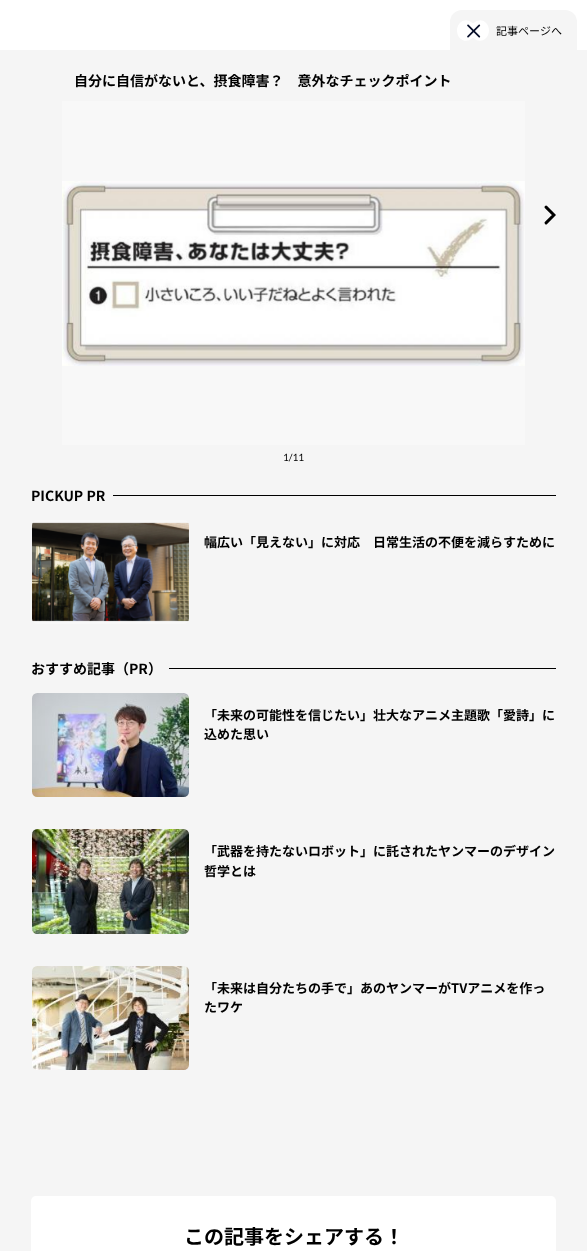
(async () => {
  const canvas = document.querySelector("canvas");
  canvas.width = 587;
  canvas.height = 1251;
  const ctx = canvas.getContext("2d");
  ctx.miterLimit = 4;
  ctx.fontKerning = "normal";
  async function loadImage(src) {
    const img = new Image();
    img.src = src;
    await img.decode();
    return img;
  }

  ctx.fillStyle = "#ffffff";
  ctx.fillRect(0, 0, 587, 1251);
  ctx.fillStyle = "#f5f5f5";
  ctx.fillRect(0, 50, 587, 1201);
  ctx.beginPath();
  ctx.roundRect(450, 10, 127, 40, [12, 12, 0, 0]);
  ctx.fill();
  ctx.drawImage(await loadImage("img/1.png"), 457, 20, 32, 21);
  ctx.fillStyle = "#f8f8f8";
  ctx.fillRect(62, 101, 463, 344);
  ctx.drawImage(await loadImage("img/2.png"), 62, 181, 463, 185);
  ctx.drawImage(await loadImage("img/3.png"), 544, 205, 12, 20);
  ctx.fillStyle = "#000000";
  ctx.fillRect(113, 495, 443, 1);
  ctx.fillStyle = "#f8f8f8";
  ctx.beginPath();
  ctx.roundRect(31.5, 519.5, 158, 105, 5.5);
  ctx.fill();
  ctx.strokeStyle = "#f5f5f5";
  ctx.stroke();
  ctx.drawImage(await loadImage("img/4.png"), 32, 522, 157, 100);
  ctx.fillStyle = "#000000";
  ctx.fillRect(169, 668, 387, 1);
  ctx.fillStyle = "#f8f8f8";
  ctx.beginPath();
  ctx.roundRect(31.5, 692.5, 158, 105, 5.5);
  ctx.fill();
  ctx.stroke();
  ctx.drawImage(await loadImage("img/5.png"), 32, 693, 157, 104);
  ctx.beginPath();
  ctx.roundRect(31.5, 828.5, 158, 106, 5.5);
  ctx.fill();
  ctx.stroke();
  ctx.drawImage(await loadImage("img/6.png"), 32, 829, 157, 105);
  ctx.beginPath();
  ctx.roundRect(31.5, 965.5, 158, 105, 5.5);
  ctx.fill();
  ctx.stroke();
  ctx.drawImage(await loadImage("img/7.png"), 32, 966, 157, 104);
  ctx.fillStyle = "#ffffff";
  ctx.beginPath();
  ctx.roundRect(31, 1196, 525, 55, [5, 5, 0, 0]);
  ctx.fill();
  ctx.font = "11px Noto Sans JP";
  ctx.fillStyle = "#000000";
  ctx.fillText("記事ページへ", 496, 35);
  ctx.font = "bold 14px Noto Sans JP";
  ctx.fillText("自分に自信がないと、摂食障害？　意外なチェックポイント", 74, 86);
  ctx.font = "10px Lato";
  ctx.fillText("1/11", 283, 461);
  ctx.font = "bold 14px Noto Sans JP";
  ctx.fillText("PICKUP PR", 31, 501);
  ctx.font = "bold 13px Noto Sans JP";
  ctx.fillText("幅広い「見えない」に対応　日常生活の不便を減らすために", 204, 547);
  ctx.font = "bold 14px Noto Sans JP";
  ctx.fillText("おすすめ記事（PR）", 31, 674);
  ctx.font = "bold 13px Noto Sans JP";
  for (const [text, x, y] of [
    ["「未来の可能性を信じたい」壮大なアニメ主題歌「愛詩」に", 204, 720],
    ["込めた思い", 204, 739],
    ["「武器を持たないロボット」に託されたヤンマーのデザイン", 204, 856],
    ["哲学とは", 204, 876],
    ["「未来は自分たちの手で」あのヤンマーがTVアニメを作っ", 204, 993],
    ["たワケ", 204, 1012],
  ]) {
    ctx.fillText(text, x, y);
  }
  ctx.font = "bold 20px Noto Sans JP";
  ctx.fillText("この記事をシェアする！", 184, 1244);
})();
